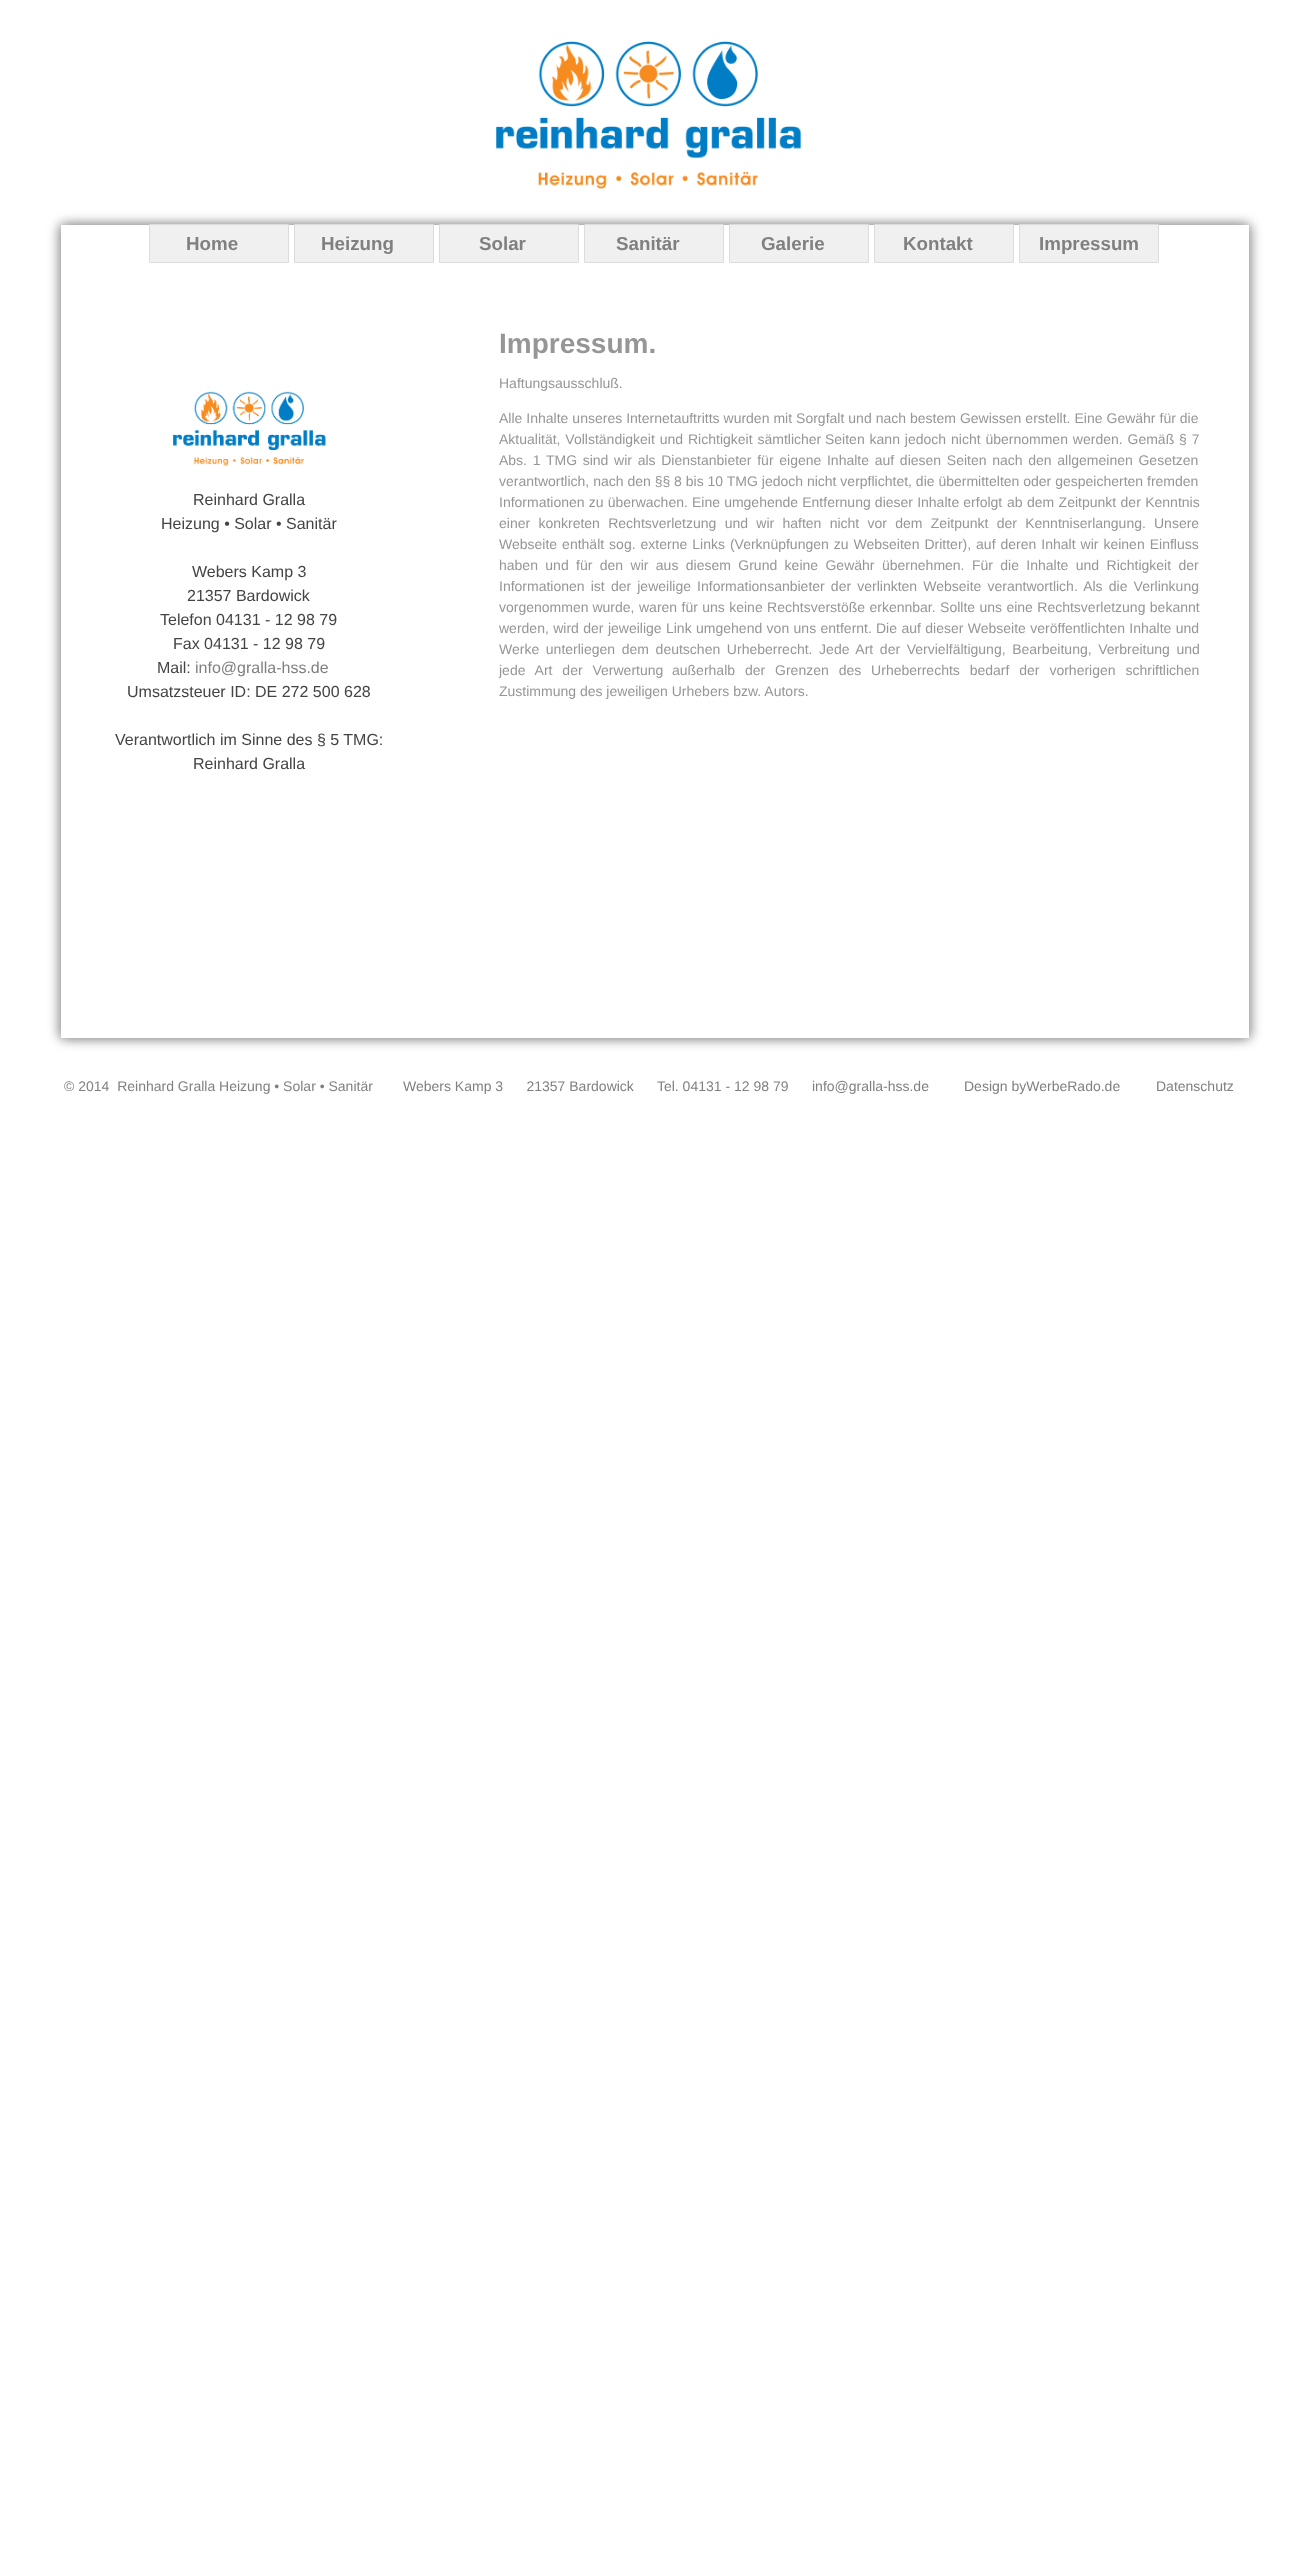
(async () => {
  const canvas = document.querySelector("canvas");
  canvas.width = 1309;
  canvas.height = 2573;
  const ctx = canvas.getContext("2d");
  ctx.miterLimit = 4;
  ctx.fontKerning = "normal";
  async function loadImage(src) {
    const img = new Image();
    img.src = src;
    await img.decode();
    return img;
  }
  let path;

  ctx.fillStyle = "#ffffff";
  ctx.fillRect(0, 0, 1309, 2573);
  ctx.drawImage(await loadImage("img/1.png"), 496, 41, 306, 148);
  ctx.save();
  path = new Path2D("M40 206H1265V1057H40ZM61 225H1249V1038H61Z");
  ctx.clip(path, "evenodd");
  ctx.fillStyle = "#999999";
  ctx.filter = "blur(6px)";
  ctx.beginPath();
  ctx.rect(59, 225, 1187, 813);
  ctx.fill();
  ctx.filter = "none";
  ctx.restore();
  ctx.save();
  path = new Path2D("M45 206H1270V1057H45ZM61 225H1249V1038H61Z");
  ctx.clip(path, "evenodd");
  ctx.fillStyle = "#999999";
  ctx.filter = "blur(6px)";
  ctx.beginPath();
  ctx.rect(64, 225, 1187, 813);
  ctx.fill();
  ctx.filter = "none";
  ctx.restore();
  ctx.fillStyle = "#f0f0f0";
  ctx.beginPath();
  ctx.rect(149.5, 224.5, 139, 38);
  ctx.fill();
  ctx.strokeStyle = "#dcdcdc";
  ctx.stroke();
  ctx.beginPath();
  ctx.rect(294.5, 224.5, 139, 38);
  ctx.fill();
  ctx.stroke();
  ctx.beginPath();
  ctx.rect(439.5, 224.5, 139, 38);
  ctx.fill();
  ctx.stroke();
  ctx.beginPath();
  ctx.rect(584.5, 224.5, 139, 38);
  ctx.fill();
  ctx.stroke();
  ctx.beginPath();
  ctx.rect(729.5, 224.5, 139, 38);
  ctx.fill();
  ctx.stroke();
  ctx.beginPath();
  ctx.rect(874.5, 224.5, 139, 38);
  ctx.fill();
  ctx.stroke();
  ctx.beginPath();
  ctx.rect(1019.5, 224.5, 139, 38);
  ctx.fill();
  ctx.stroke();
  ctx.drawImage(await loadImage("img/2.png"), 173, 391, 153, 76);
  ctx.font = "bold 18.75px Liberation Sans";
  ctx.fillStyle = "#808080";
  for (const [text, x, y] of [
    ["Home", 186, 250],
    ["Heizung", 321, 250],
    ["Solar", 479, 250],
    ["Sanitär", 616, 250],
    ["Galerie", 761, 250],
    ["Kontakt", 903, 250],
    ["Impressum", 1039, 250],
  ]) {
    ctx.fillText(text, x, y);
  }
  ctx.font = "16px Liberation Sans";
  ctx.fillStyle = "#444444";
  for (const [text, x, y] of [
    ["Reinhard Gralla", 193, 505],
    ["Heizung • Solar • Sanitär", 161, 529],
    ["Webers Kamp 3", 192, 577],
    ["21357 Bardowick", 187, 601],
    ["Telefon 04131 - 12 98 79", 160, 625],
    ["Fax 04131 - 12 98 79", 173, 649],
    ["Mail:", 157, 673],
  ]) {
    ctx.fillText(text, x, y);
  }
  ctx.fillStyle = "#808080";
  ctx.fillText("info@gralla-hss.de", 195, 673);
  ctx.fillStyle = "#444444";
  for (const [text, x, y] of [
    ["Umsatzsteuer ID: DE 272 500 628", 127, 697],
    ["Verantwortlich im Sinne des § 5 TMG:", 115, 745],
    ["Reinhard Gralla", 193, 769],
  ]) {
    ctx.fillText(text, x, y);
  }
  ctx.font = "bold 28px Liberation Sans";
  ctx.fillStyle = "#969696";
  ctx.fillText("Impressum.", 499, 353);
  ctx.font = "14px Liberation Sans";
  ctx.fillText("Haftungsausschluß.", 499, 388);
  ctx.wordSpacing = "0.1px";
  ctx.fillText("Alle Inhalte unseres Internetauftritts wurden mit Sorgfalt und nach bestem Gewissen erstellt. Eine Gewähr für die", 499, 423);
  ctx.wordSpacing = "1px";
  ctx.fillText("Aktualität, Vollständigkeit und Richtigkeit sämtlicher", 499, 444);
  ctx.fillText("Seiten kann jedoch nicht übernommen werden. Gemäß § 7", 825, 444);
  ctx.wordSpacing = "1.8px";
  ctx.fillText("Abs. 1 TMG sind wir als Dienstanbieter für eigene Inhalte auf diesen Seiten nach den allgemeinen Gesetzen", 499, 465);
  ctx.wordSpacing = "0px";
  ctx.fillText("verantwortlich, nach den §§ 8 bis 10 TMG jedoch nicht verpflichtet, die übermittelten oder gespeicherten fremden", 499, 486);
  ctx.wordSpacing = "0.25px";
  ctx.fillText("Informationen zu überwachen. Eine umgehende Entfernung dieser Inhalte erfolgt", 499, 507);
  ctx.wordSpacing = "0.5px";
  ctx.fillText("ab dem Zeitpunkt der Kenntnis", 1007, 507);
  ctx.wordSpacing = "4.4px";
  ctx.fillText("einer konkreten Rechtsverletzung und wir haften nicht vor dem Zeitpunkt der Kenntniserlangung.", 499, 528);
  ctx.wordSpacing = "0px";
  ctx.fillText("Unsere", 1154, 528);
  ctx.wordSpacing = "1.1px";
  ctx.fillText("Webseite enthält sog. externe Links (Verknüpfungen zu Webseiten Dritter), auf deren Inhalt wir keinen Einfluss", 499, 549);
  ctx.wordSpacing = "3.5px";
  ctx.fillText("haben und für den wir aus diesem Grund keine Gewähr", 499, 570);
  ctx.fillText("übernehmen. Für die Inhalte und Richtigkeit der", 882, 570);
  ctx.wordSpacing = "2.25px";
  ctx.fillText("Informationen ist der jeweilige Informationsanbieter der verlinkten Webseite verantwortlich. Als die Verlinkung", 499, 591);
  ctx.wordSpacing = "0px";
  ctx.fillText("vorgenommen wurde,", 499, 612);
  ctx.wordSpacing = "0.5px";
  for (const [text, x, y] of [
    ["waren für uns keine Rechtsverstöße erkennbar. Sollte uns eine Rechtsverletzung bekannt", 639, 612],
    ["werden, wird der jeweilige Link umgehend von uns entfernt.", 499, 633],
    ["Die auf dieser Webseite veröffentlichten Inhalte und", 876, 633],
  ]) {
    ctx.fillText(text, x, y);
  }
  ctx.wordSpacing = "2.75px";
  ctx.fillText("Werke unterliegen dem deutschen Urheberrecht. Jede Art der Vervielfältigung, Bearbeitung, Verbreitung und", 499, 654);
  ctx.wordSpacing = "6px";
  ctx.fillText("jede Art der Verwertung", 499, 675);
  ctx.fillText("außerhalb der Grenzen des Urheberrechts bedarf der vorherigen schriftlichen", 672, 675);
  ctx.wordSpacing = "0px";
  ctx.fillText("Zustimmung des jeweiligen Urhebers bzw. Autors.", 499, 696);
  ctx.fillStyle = "#808080";
  for (const [text, x, y] of [
    ["© 2014  Reinhard Gralla Heizung • Solar • Sanitär", 64, 1091],
    ["Webers Kamp 3      21357 Bardowick      Tel. 04131 - 12 98 79", 403, 1091],
    ["info@gralla-hss.de", 812, 1091],
    ["Design byWerbeRado.de", 964, 1091],
    ["Datenschutz", 1156, 1091],
  ]) {
    ctx.fillText(text, x, y);
  }
})();
